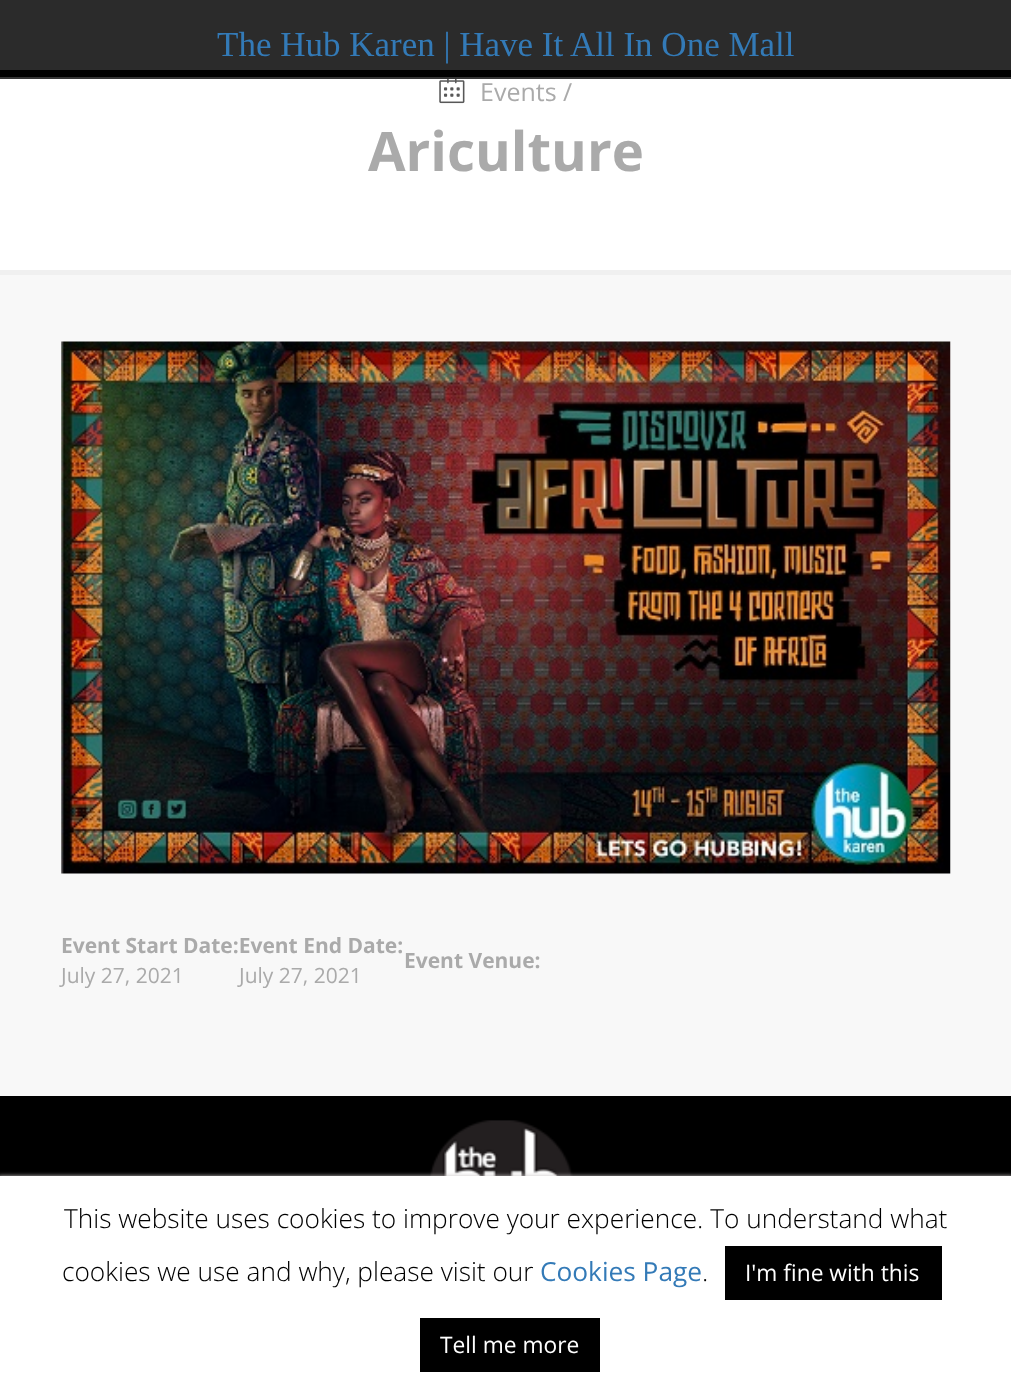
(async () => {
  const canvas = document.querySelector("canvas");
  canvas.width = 1011;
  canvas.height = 1393;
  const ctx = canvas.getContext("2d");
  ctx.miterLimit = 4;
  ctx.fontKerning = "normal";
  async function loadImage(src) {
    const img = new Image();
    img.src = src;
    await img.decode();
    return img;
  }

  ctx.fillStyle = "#f8f8f8";
  ctx.fillRect(0, 0, 1011, 1393);
  for (const [x, y, w, h, color] of [
    [0, 0, 1011, 70, "#2b2b2b"],
    [0, 70, 1011, 7, "#000000"],
    [0, 77, 1011, 2, "#353535"],
    [0, 79, 1011, 191, "#ffffff"],
    [0, 270, 1011, 5, "#f0f0f0"],
  ]) {
    ctx.fillStyle = color;
    ctx.fillRect(x, y, w, h);
  }
  ctx.drawImage(await loadImage("img/1.png"), 439, 79, 26, 25);
  ctx.drawImage(await loadImage("img/2.png"), 61, 341, 890, 533);
  ctx.fillStyle = "#000000";
  ctx.fillRect(0, 1096, 1011, 80);
  ctx.drawImage(await loadImage("img/3.png"), 429, 1120, 145, 56);
  ctx.fillStyle = "#c7c3c3";
  ctx.filter = "blur(2px)";
  ctx.beginPath();
  ctx.rect(-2, 1176, 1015, 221);
  ctx.fill();
  ctx.filter = "none";
  for (const [x, y, w, h, color] of [
    [0, 1176, 1011, 217, "#ffffff"],
    [725, 1246, 217, 54, "#000000"],
    [420, 1318, 180, 54, "#000000"],
  ]) {
    ctx.fillStyle = color;
    ctx.fillRect(x, y, w, h);
  }
  ctx.font = "35px Liberation Serif";
  ctx.fillStyle = "#337ab7";
  ctx.fillText("The Hub Karen | Have It All In One Mall", 217, 56);
  ctx.font = "25px Open Sans";
  ctx.fillStyle = "#aaaaaa";
  ctx.fillText("Events /", 480, 101);
  ctx.font = "bold 54.5px Open Sans";
  ctx.fillText("Ariculture", 368, 171);
  ctx.font = "bold 21px Open Sans";
  ctx.fillText("Event Start Date:Event End Date:", 61, 953);
  ctx.font = "21px Open Sans";
  ctx.fillText("July 27, 2021", 61, 983);
  ctx.font = "bold 21px Open Sans";
  ctx.fillText("Event Venue:", 404, 968);
  ctx.font = "21px Open Sans";
  ctx.fillText("July 27, 2021", 239, 983);
  ctx.font = "300 26.25px Open Sans";
  ctx.fillStyle = "#000000";
  ctx.fillText("This website uses cookies to improve your experience. To understand what", 64, 1228);
  ctx.fillText("cookies we use and why, please visit our", 62, 1281);
  ctx.font = "26.25px Open Sans";
  ctx.fillStyle = "#337ab7";
  ctx.fillText("Cookies Page", 540, 1281);
  ctx.font = "300 26.25px Open Sans";
  ctx.fillStyle = "#000000";
  ctx.fillText(".", 702, 1281);
  ctx.font = "22.75px Open Sans";
  ctx.fillStyle = "#ffffff";
  ctx.fillText("I'm fine with this", 745, 1281);
  ctx.fillText("Tell me more", 440, 1353);
})();
